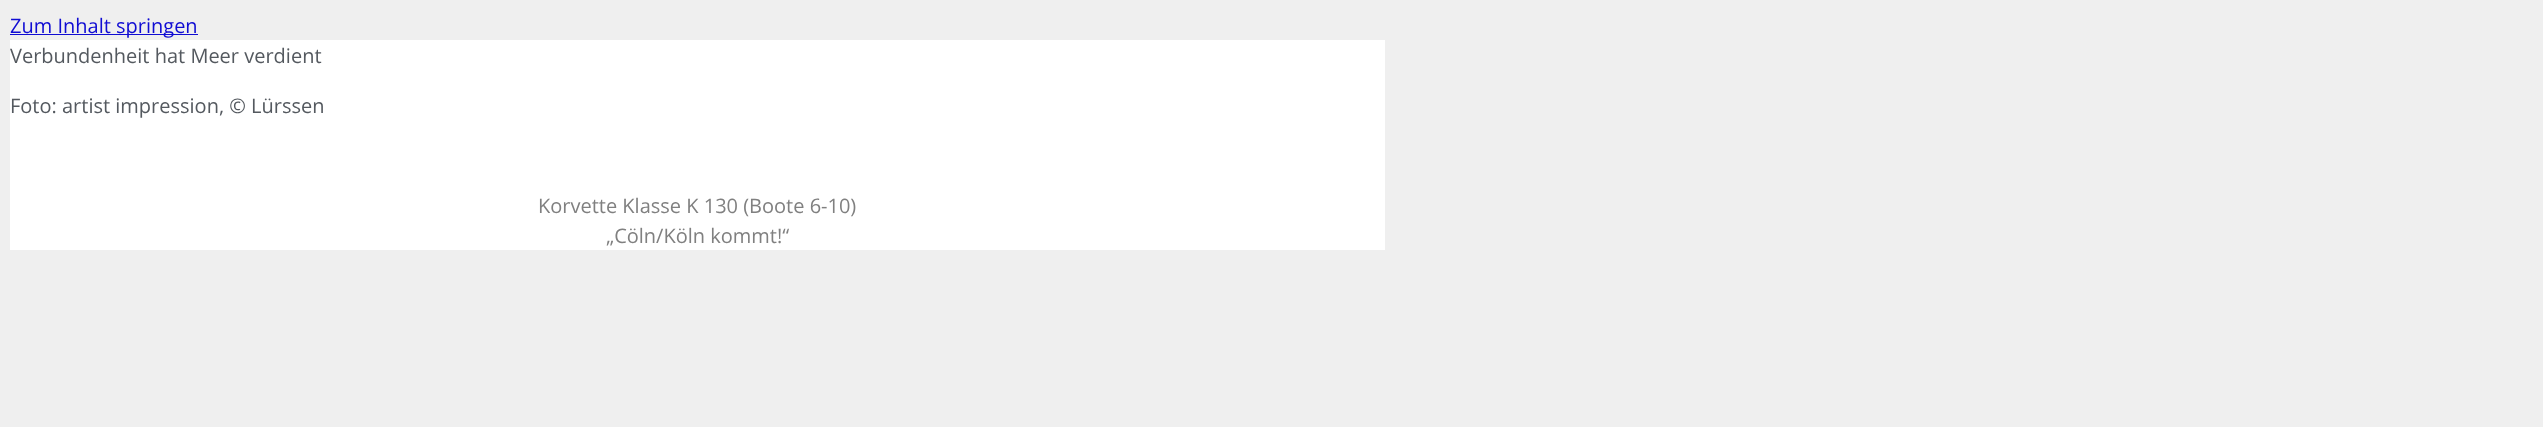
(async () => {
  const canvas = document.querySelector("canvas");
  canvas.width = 2543;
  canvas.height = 427;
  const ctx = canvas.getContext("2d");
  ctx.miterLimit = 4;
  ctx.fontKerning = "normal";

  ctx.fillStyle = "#efefef";
  ctx.fillRect(0, 0, 2543, 427);
  ctx.fillStyle = "#100cd3";
  ctx.fillRect(10, 34, 188, 1);
  ctx.fillStyle = "#ffffff";
  ctx.fillRect(10, 40, 1375, 210);
  ctx.font = "20px Open Sans";
  ctx.fillStyle = "#100cd3";
  ctx.fillText("Zum Inhalt springen", 10, 33);
  ctx.fillStyle = "#54595f";
  ctx.fillText("Verbundenheit hat Meer verdient", 10, 63);
  ctx.fillText("Foto: artist impression, © Lürssen", 10, 113);
  ctx.fillStyle = "#808080";
  ctx.fillText("Korvette Klasse K 130 (Boote 6-10)", 538, 213);
  ctx.fillText("„Cöln/Köln kommt!“", 606, 243);
})();
